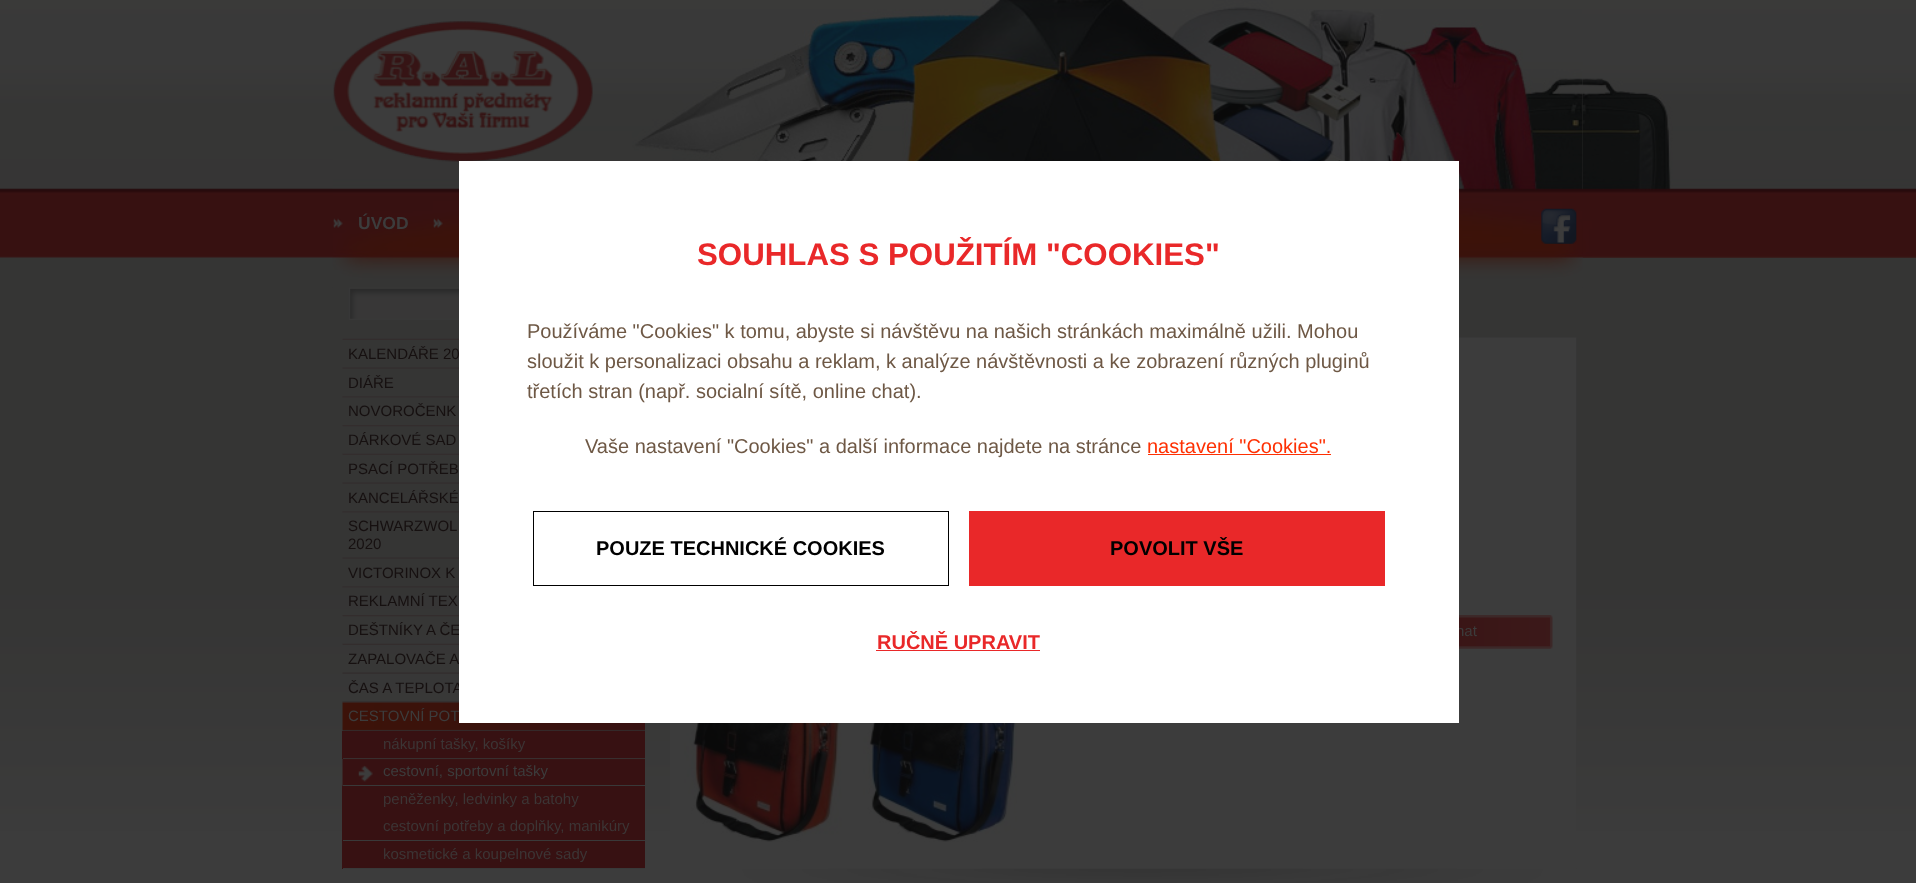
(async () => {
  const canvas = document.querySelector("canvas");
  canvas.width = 1916;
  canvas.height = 883;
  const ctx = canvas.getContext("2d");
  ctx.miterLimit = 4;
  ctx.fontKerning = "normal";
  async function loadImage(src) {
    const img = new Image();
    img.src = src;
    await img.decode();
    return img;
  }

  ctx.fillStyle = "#3c3c3c";
  ctx.fillRect(0, 0, 1916, 883);
  ctx.drawImage(await loadImage("img/1.png"), 0, 0, 1916, 831);
  ctx.drawImage(await loadImage("img/7.png"), 1582, 78, 334, 180);
  ctx.drawImage(await loadImage("img/8.png"), 348, 287, 111, 33);
  ctx.drawImage(await loadImage("img/2.png"), 332, 0, 1251, 288);
  ctx.drawImage(await loadImage("img/3.png"), 333, 21, 260, 141);
  ctx.drawImage(await loadImage("img/4.png"), 333, 218, 10, 10);
  ctx.drawImage(await loadImage("img/5.png"), 433, 218, 10, 10);
  ctx.drawImage(await loadImage("img/6.png"), 1541, 208, 36, 36);
  ctx.drawImage(await loadImage("img/9.png"), 342, 338, 117, 2);
  ctx.drawImage(await loadImage("img/10.png"), 342, 367, 117, 2);
  ctx.drawImage(await loadImage("img/11.png"), 342, 396, 117, 2);
  ctx.drawImage(await loadImage("img/12.png"), 342, 425, 117, 2);
  ctx.drawImage(await loadImage("img/13.png"), 342, 453, 117, 2);
  ctx.drawImage(await loadImage("img/14.png"), 342, 482, 117, 2);
  ctx.drawImage(await loadImage("img/15.png"), 342, 511, 117, 2);
  ctx.drawImage(await loadImage("img/14.png"), 342, 557, 117, 2);
  ctx.drawImage(await loadImage("img/16.png"), 342, 586, 117, 2);
  ctx.drawImage(await loadImage("img/17.png"), 342, 615, 117, 2);
  ctx.drawImage(await loadImage("img/18.png"), 342, 643, 117, 2);
  ctx.drawImage(await loadImage("img/19.png"), 342, 672, 117, 2);
  ctx.drawImage(await loadImage("img/20.png"), 342, 701, 117, 2);
  ctx.drawImage(await loadImage("img/21.png"), 342, 702, 303, 29);
  ctx.fillStyle = "#371112";
  ctx.fillRect(342, 731, 303, 28);
  ctx.fillStyle = "#393939";
  ctx.fillRect(343, 758, 302, 1);
  ctx.drawImage(await loadImage("img/22.png"), 342, 758, 303, 28);
  for (const [x, y, w, h, color] of [
    [343, 785, 302, 1, "#393939"],
    [342, 786, 303, 83, "#371112"],
    [343, 840, 302, 1, "#393939"],
    [343, 868, 302, 1, "#393939"],
  ]) {
    ctx.fillStyle = color;
    ctx.fillRect(x, y, w, h);
  }
  ctx.drawImage(await loadImage("img/23.png"), 670, 337, 907, 546);
  ctx.drawImage(await loadImage("img/24.png"), 1459, 615, 94, 34);
  ctx.drawImage(await loadImage("img/25.png"), 684, 723, 158, 119);
  ctx.drawImage(await loadImage("img/26.png"), 863, 723, 154, 119);
  ctx.font = "bold 17.5px Liberation Sans";
  ctx.fillStyle = "#3c3c3c";
  ctx.fillText("ÚVOD", 358, 229);
  ctx.font = "15px Liberation Sans";
  ctx.fillStyle = "#161010";
  for (const [text, x, y] of [
    ["KALENDÁŘE 20", 348, 359],
    ["DIÁŘE", 348, 388],
    ["NOVOROČENK", 348, 416],
    ["DÁRKOVÉ SAD", 348, 445],
    ["PSACÍ POTŘEB", 348, 474],
    ["KANCELÁŘSKÉ", 348, 503],
    ["SCHWARZWOL", 348, 531],
    ["2020", 348, 549],
    ["VICTORINOX K", 348, 578],
    ["REKLAMNÍ TEX", 348, 606],
    ["DEŠTNÍKY A ČE", 348, 635],
    ["ZAPALOVAČE A", 348, 664],
    ["ČAS A TEPLOTA", 348, 693],
  ]) {
    ctx.fillText(text, x, y);
  }
  ctx.fillStyle = "#3c3c3c";
  ctx.fillText("CESTOVNÍ POT", 348, 721);
  ctx.fillStyle = "#3c3535";
  ctx.fillText("nákupní tašky, košíky", 383, 749);
  ctx.fillStyle = "#3c3c3c";
  ctx.fillText("cestovní, sportovní tašky", 383, 776);
  ctx.fillStyle = "#3c3535";
  for (const [text, x, y] of [
    ["peněženky, ledvinky a batohy", 383, 804],
    ["cestovní potřeby a doplňky, manikúry", 383, 831],
    ["kosmetické a koupelnové sady", 383, 859],
  ]) {
    ctx.fillText(text, x, y);
  }
  ctx.fillStyle = "#3c3c3c";
  ctx.fillText("nat", 1456, 636);
  ctx.fillStyle = "#ffffff";
  ctx.fillRect(459, 161, 1000, 562);
  ctx.font = "bold 31.25px Liberation Sans";
  ctx.fillStyle = "#e92829";
  ctx.fillText("SOUHLAS S POUŽITÍM \"COOKIES\"", 697, 265);
  ctx.font = "20px Liberation Sans";
  ctx.fillStyle = "#6e5845";
  for (const [text, x, y] of [
    ["Používáme \"Cookies\" k tomu, abyste si návštěvu na našich stránkách maximálně užili. Mohou", 527, 338],
    ["sloužit k personalizaci obsahu a reklam, k analýze návštěvnosti a ke zobrazení různých pluginů", 527, 368],
    ["třetích stran (např. socialní sítě, online chat).", 527, 398],
    ["Vaše nastavení \"Cookies\" a další informace najdete na stránce", 585, 453],
  ]) {
    ctx.fillText(text, x, y);
  }
  ctx.fillStyle = "#fe3003";
  ctx.fillText("nastavení \"Cookies\".", 1147, 453);
  ctx.fillRect(1148, 454, 183, 1);
  ctx.strokeStyle = "#000000";
  ctx.strokeRect(533.5, 511.5, 415, 74);
  ctx.font = "bold 20px Liberation Sans";
  ctx.fillStyle = "#000000";
  ctx.fillText("POUZE TECHNICKÉ COOKIES", 596, 555);
  ctx.fillStyle = "#e92829";
  ctx.fillRect(969, 511, 416, 75);
  ctx.fillStyle = "#000000";
  ctx.fillText("POVOLIT VŠE", 1110, 555);
  ctx.fillStyle = "#e92829";
  ctx.fillText("RUČNĚ UPRAVIT", 877, 649);
  ctx.fillRect(876, 650, 164, 1);
})();
